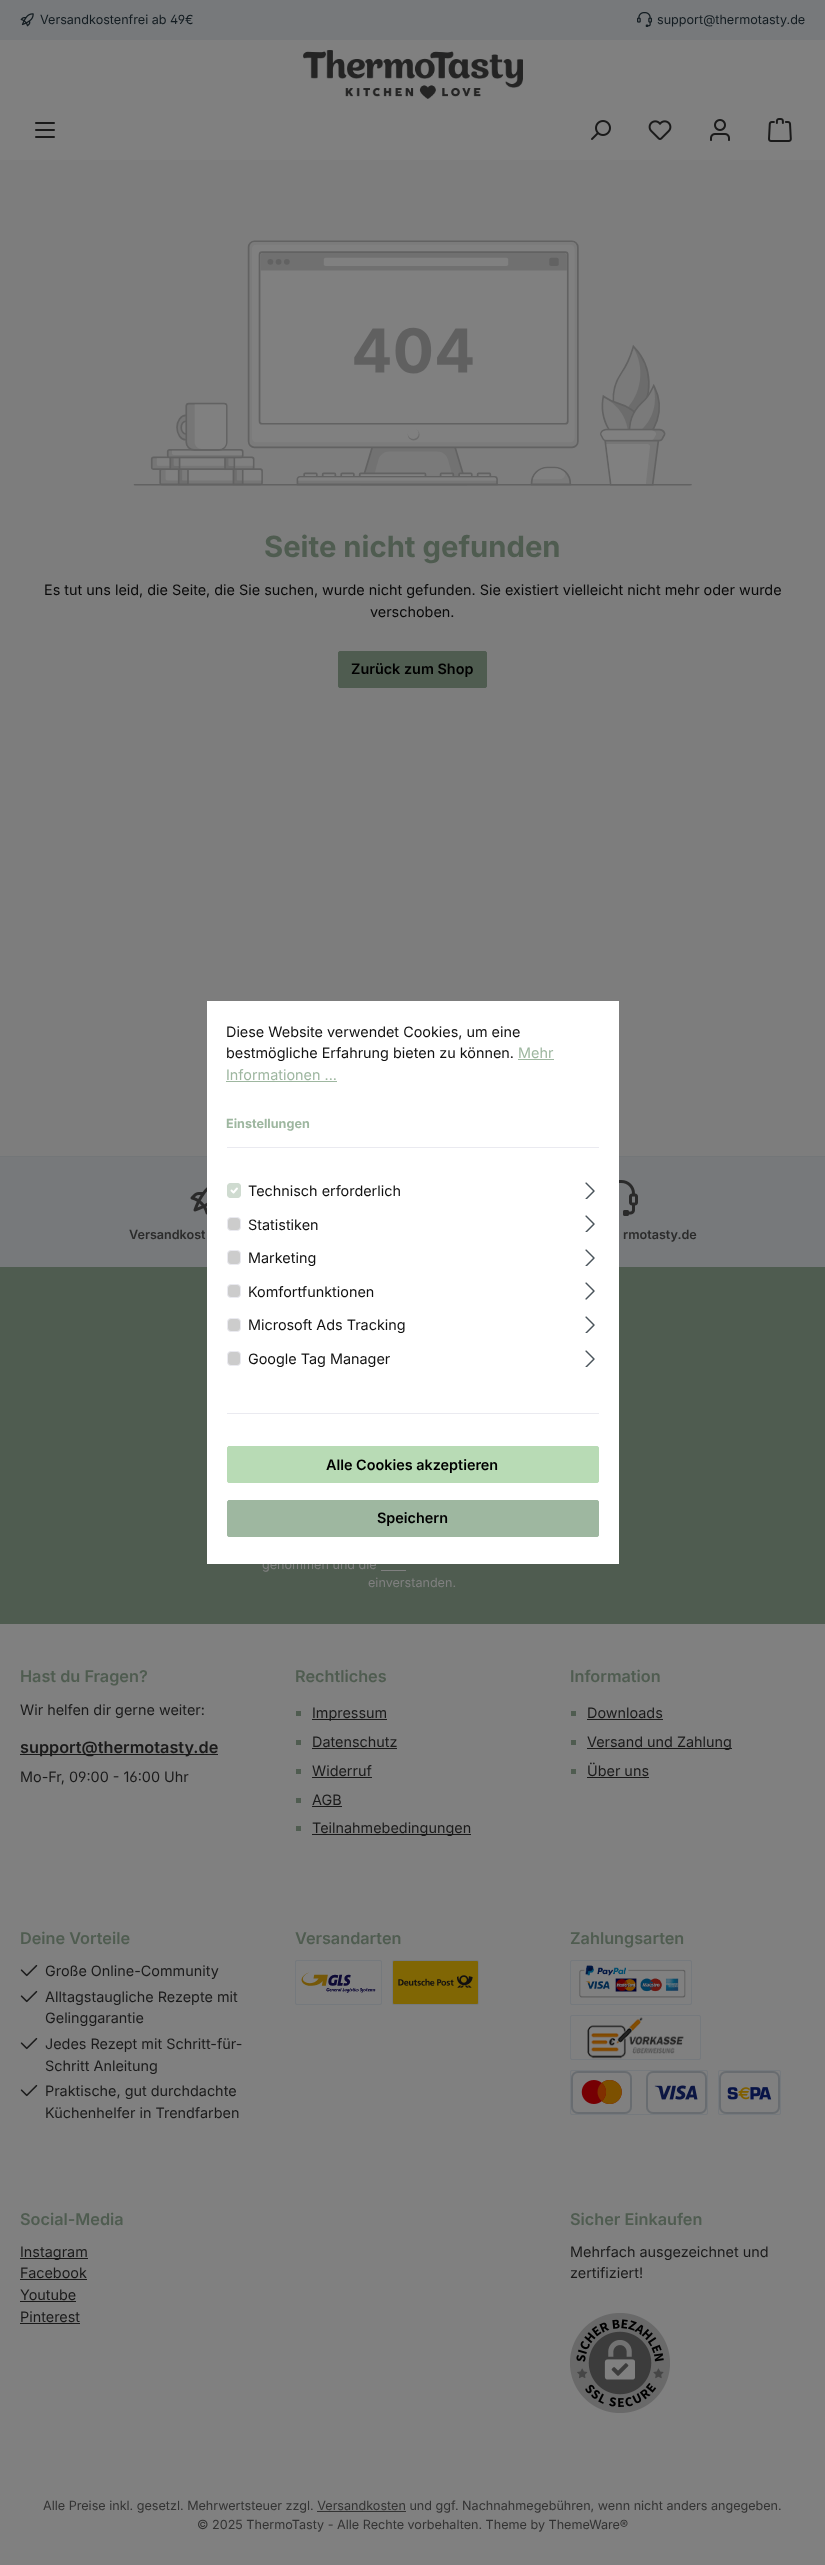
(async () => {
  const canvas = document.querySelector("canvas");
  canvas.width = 825;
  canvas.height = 2565;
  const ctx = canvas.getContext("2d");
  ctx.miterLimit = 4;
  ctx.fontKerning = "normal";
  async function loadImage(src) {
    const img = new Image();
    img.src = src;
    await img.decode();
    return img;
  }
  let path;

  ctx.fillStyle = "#7d7d7d";
  ctx.fillRect(0, 0, 825, 2565);
  ctx.fillStyle = "#77797b";
  ctx.fillRect(0, 0, 825, 40);
  ctx.drawImage(await loadImage("img/1.png"), 20, 13, 14, 14);
  ctx.drawImage(await loadImage("img/2.png"), 637, 12, 15, 15);
  ctx.fillStyle = "#808080";
  ctx.fillRect(0, 40, 825, 120);
  ctx.drawImage(await loadImage("img/3.png"), 303, 50, 220, 49);
  ctx.drawImage(await loadImage("img/4.png"), 35, 122, 20, 16);
  ctx.drawImage(await loadImage("img/5.png"), 591, 120, 20, 20);
  ctx.drawImage(await loadImage("img/6.png"), 648, 120, 24, 20);
  ctx.drawImage(await loadImage("img/7.png"), 710, 119, 20, 22);
  ctx.drawImage(await loadImage("img/8.png"), 768, 118, 24, 24);
  ctx.drawImage(await loadImage("img/9.png"), 133, 240, 559, 246);
  ctx.fillStyle = "#4f5c50";
  ctx.beginPath();
  ctx.roundRect(338.5, 651.5, 148, 36, 1.5);
  ctx.fill();
  ctx.strokeStyle = "#4f5c50";
  ctx.stroke();
  ctx.fillStyle = "#77797b";
  ctx.fillRect(0, 1157, 825, 110);
  ctx.fillStyle = "#737678";
  ctx.fillRect(0, 1156, 825, 1);
  ctx.drawImage(await loadImage("img/12.png"), 190, 1187, 17, 28);
  ctx.drawImage(await loadImage("img/13.png"), 619, 1180, 19, 36);
  for (const [x, y, w, h, color] of [
    [0, 1624, 825, 941, "#808080"],
    [0, 1267, 825, 357, "#4f5c50"],
    [381, 1570, 25, 1, "#808080"],
    [20, 1754, 198, 1, "#1a1a1a"],
    [296, 1711, 5, 5, "#4f5c50"],
    [312, 1719, 75, 1, "#1a1a1a"],
    [296, 1740, 5, 5, "#4f5c50"],
    [312, 1748, 85, 1, "#1a1a1a"],
    [296, 1769, 5, 5, "#4f5c50"],
    [312, 1777, 60, 1, "#1a1a1a"],
    [296, 1798, 5, 5, "#4f5c50"],
    [312, 1806, 30, 1, "#1a1a1a"],
    [296, 1826, 5, 5, "#4f5c50"],
    [312, 1834, 159, 1, "#1a1a1a"],
    [571, 1711, 5, 5, "#4f5c50"],
    [587, 1719, 76, 1, "#1a1a1a"],
    [571, 1740, 5, 5, "#4f5c50"],
    [587, 1748, 145, 1, "#1a1a1a"],
    [571, 1769, 5, 5, "#4f5c50"],
    [587, 1777, 62, 1, "#1a1a1a"],
  ]) {
    ctx.fillStyle = color;
    ctx.fillRect(x, y, w, h);
  }
  ctx.drawImage(await loadImage("img/14.png"), 20, 1964, 18, 13);
  ctx.drawImage(await loadImage("img/14.png"), 20, 1990, 18, 13);
  ctx.drawImage(await loadImage("img/14.png"), 20, 2037, 18, 13);
  ctx.drawImage(await loadImage("img/14.png"), 20, 2084, 18, 13);
  ctx.beginPath();
  ctx.roundRect(295.5, 1960.5, 86, 44, 1.5);
  ctx.strokeStyle = "#75797d";
  ctx.stroke();
  ctx.drawImage(await loadImage("img/15.png"), 301, 1972, 75, 21);
  ctx.beginPath();
  ctx.roundRect(392.5, 1960.5, 86, 44, 1.5);
  ctx.stroke();
  ctx.drawImage(await loadImage("img/16.png"), 393, 1961, 85, 43);
  ctx.beginPath();
  ctx.roundRect(570.5, 1960.5, 121, 44, 1.5);
  ctx.stroke();
  ctx.drawImage(await loadImage("img/17.png"), 579, 1965, 107, 33);
  ctx.beginPath();
  ctx.roundRect(570.5, 2015.5, 130, 44, 1.5);
  ctx.stroke();
  ctx.drawImage(await loadImage("img/18.png"), 587, 2017, 97, 42);
  ctx.beginPath();
  ctx.roundRect(570.5, 2070.5, 137, 44, 1.5);
  ctx.stroke();
  ctx.drawImage(await loadImage("img/19.png"), 571, 2071, 136, 43);
  ctx.beginPath();
  ctx.roundRect(718.5, 2070.5, 62, 44, 1.5);
  ctx.stroke();
  ctx.drawImage(await loadImage("img/20.png"), 719, 2071, 61, 43);
  for (const [x, y, w, h, color] of [
    [20, 2258, 68, 1, "#1a1a1a"],
    [20, 2279, 67, 1, "#1a1a1a"],
    [20, 2301, 56, 1, "#1a1a1a"],
    [20, 2323, 60, 1, "#1a1a1a"],
  ]) {
    ctx.fillStyle = color;
    ctx.fillRect(x, y, w, h);
  }
  ctx.drawImage(await loadImage("img/21.png"), 570, 2313, 100, 100);
  ctx.fillStyle = "#333333";
  ctx.fillRect(317, 2511, 89, 1);
  ctx.font = "12.6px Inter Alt";
  ctx.fillStyle = "#131c21";
  ctx.fillText("Versandkostenfrei ab 49€", 40, 24);
  ctx.font = "12.6px Inter";
  ctx.fillText("support@thermotasty.de", 657, 24);
  ctx.font = "bold 29.25px Inter";
  ctx.fillStyle = "#4f5c50";
  ctx.fillText("Seite nicht gefunden", 264, 557);
  ctx.font = "14.4px Inter";
  ctx.fillStyle = "#090909";
  ctx.fillText("Es tut uns leid, die Seite, die Sie suchen, wurde nicht gefunden. Sie existiert vielleicht nicht mehr oder wurde", 44, 595);
  ctx.fillText("verschoben.", 370, 617);
  ctx.font = "600 14.4px Inter";
  ctx.fillStyle = "#000000";
  ctx.fillText("Zurück zum Shop", 351, 674);
  ctx.font = "600 12.6px Inter Alt";
  ctx.fillStyle = "#2b2b2b";
  ctx.fillText("Versandkost", 129, 1239);
  ctx.font = "600 12.6px Inter";
  ctx.fillText("rmotasty.de", 623, 1239);
  ctx.font = "12.6px Inter";
  ctx.fillStyle = "#808080";
  ctx.fillText("genommen und die", 262, 1569);
  ctx.fillStyle = "#ffffff";
  ctx.fillRect(207, 1001, 412, 563);
  ctx.drawImage(await loadImage("img/10.png"), 585, 1350, 10, 17);
  ctx.font = "14.4px Inter";
  ctx.fillStyle = "#111111";
  ctx.fillText("Google Tag Manager", 248, 1364);
  ctx.fillStyle = "#cccccc";
  ctx.beginPath();
  ctx.roundRect(227.5, 1351.5, 13, 14, 3.5);
  ctx.fill();
  ctx.strokeStyle = "#eaeaf0";
  ctx.stroke();
  ctx.drawImage(await loadImage("img/10.png"), 585, 1316, 10, 17);
  ctx.fillStyle = "#111111";
  ctx.fillText("Microsoft Ads Tracking", 248, 1330);
  ctx.fillStyle = "#cccccc";
  ctx.beginPath();
  ctx.roundRect(227.5, 1318.5, 13, 13, 3.5);
  ctx.fill();
  ctx.stroke();
  ctx.drawImage(await loadImage("img/11.png"), 585, 1282, 10, 18);
  ctx.fillStyle = "#111111";
  ctx.fillText("Komfortfunktionen", 248, 1297);
  ctx.fillStyle = "#cccccc";
  ctx.beginPath();
  ctx.roundRect(227.5, 1284.5, 13, 13, 3.5);
  ctx.fill();
  ctx.stroke();
  ctx.drawImage(await loadImage("img/10.png"), 585, 1249, 10, 17);
  ctx.fillStyle = "#111111";
  ctx.fillText("Marketing", 248, 1263);
  ctx.fillStyle = "#cccccc";
  ctx.beginPath();
  ctx.roundRect(227.5, 1250.5, 13, 14, 3.5);
  ctx.fill();
  ctx.stroke();
  ctx.drawImage(await loadImage("img/10.png"), 585, 1215, 10, 17);
  ctx.fillStyle = "#111111";
  ctx.fillText("Statistiken", 248, 1230);
  ctx.fillStyle = "#cccccc";
  ctx.beginPath();
  ctx.roundRect(227.5, 1217.5, 13, 13, 3.5);
  ctx.fill();
  ctx.stroke();
  ctx.drawImage(await loadImage("img/10.png"), 585, 1182, 10, 17);
  ctx.fillStyle = "#cfdbd0";
  ctx.beginPath();
  ctx.roundRect(227, 1183, 14, 15, 4);
  ctx.fill();
  path = new Path2D("M231.5 1190.5L233.5 1192.5L237 1188.5");
  ctx.strokeStyle = "#ffffff";
  ctx.lineWidth = 1.9;
  ctx.lineCap = "round";
  ctx.lineJoin = "round";
  ctx.stroke(path);
  ctx.beginPath();
  ctx.roundRect(227.5, 1183.5, 13, 14, 3.5);
  ctx.strokeStyle = "#cfdbd0";
  ctx.lineWidth = 1;
  ctx.lineJoin = "miter";
  ctx.stroke();
  ctx.fillStyle = "#111111";
  ctx.fillText("Technisch erforderlich", 248, 1196);
  ctx.fillStyle = "#9eb7a0";
  ctx.beginPath();
  ctx.roundRect(227.5, 1500.5, 371, 36, 1.5);
  ctx.fill();
  ctx.strokeStyle = "#9eb7a0";
  ctx.stroke();
  ctx.font = "600 14.4px Inter";
  ctx.fillStyle = "#000000";
  ctx.fillText("Speichern", 377, 1523);
  ctx.fillStyle = "#b8dbb5";
  ctx.beginPath();
  ctx.roundRect(227.5, 1446.5, 371, 36, 1.5);
  ctx.fill();
  ctx.strokeStyle = "#b8dbb5";
  ctx.stroke();
  ctx.fillStyle = "#000000";
  ctx.fillText("Alle Cookies akzeptieren", 326, 1470);
  ctx.font = "bold 12.6px Inter";
  ctx.fillStyle = "#9eb7a0";
  ctx.fillText("Einstellungen", 226, 1128);
  ctx.font = "14.4px Inter";
  ctx.fillText("Informationen ...", 226, 1080);
  ctx.fillRect(226, 1081, 111, 1);
  ctx.fillText("Mehr", 518, 1058);
  ctx.fillRect(518, 1059, 36, 1);
  ctx.fillStyle = "#111111";
  ctx.fillText("bestmögliche Erfahrung bieten zu können.", 226, 1058);
  ctx.fillText("Diese Website verwendet Cookies, um eine", 226, 1037);
  ctx.fillStyle = "#eaeaf0";
  ctx.fillRect(227, 1413, 372, 1);
  ctx.fillRect(227, 1147, 372, 1);
  ctx.font = "12.6px Inter";
  ctx.fillStyle = "#808080";
  ctx.fillText("einverstanden.", 368, 1587);
  ctx.font = "600 16.25px Inter";
  ctx.fillStyle = "#4f5c50";
  ctx.fillText("Hast du Fragen?", 20, 1682);
  ctx.font = "14.4px Inter";
  ctx.fillStyle = "#1a1a1a";
  ctx.fillText("Wir helfen dir gerne weiter:", 20, 1715);
  ctx.font = "600 16.25px Inter";
  ctx.fillText("support@thermotasty.de", 20, 1753);
  ctx.font = "14.4px Inter Alt";
  ctx.fillText("Mo-Fr, 09:00 - 16:00 Uhr", 20, 1782);
  ctx.font = "600 16.25px Inter";
  ctx.fillStyle = "#4f5c50";
  ctx.fillText("Rechtliches", 295, 1682);
  ctx.font = "14.4px Inter";
  ctx.fillStyle = "#1a1a1a";
  for (const [text, x, y] of [
    ["Impressum", 312, 1718],
    ["Datenschutz", 312, 1747],
    ["Widerruf", 312, 1776],
    ["AGB", 312, 1805],
    ["Teilnahmebedingungen", 312, 1833],
  ]) {
    ctx.fillText(text, x, y);
  }
  ctx.font = "600 16.25px Inter";
  ctx.fillStyle = "#4f5c50";
  ctx.fillText("Information", 570, 1682);
  ctx.font = "14.4px Inter";
  ctx.fillStyle = "#1a1a1a";
  for (const [text, x, y] of [
    ["Downloads", 587, 1718],
    ["Versand und Zahlung", 587, 1747],
    ["Über uns", 587, 1776],
  ]) {
    ctx.fillText(text, x, y);
  }
  ctx.font = "600 16.25px Inter";
  ctx.fillStyle = "#4f5c50";
  ctx.fillText("Deine Vorteile", 20, 1944);
  ctx.font = "14.4px Inter";
  ctx.fillStyle = "#1a1a1a";
  for (const [text, x, y] of [
    ["Große Online-Community", 45, 1976],
    ["Alltagstaugliche Rezepte mit", 45, 2002],
    ["Gelinggarantie", 45, 2023],
    ["Jedes Rezept mit Schritt-für-", 45, 2049],
    ["Schritt Anleitung", 45, 2071],
    ["Praktische, gut durchdachte", 45, 2096],
    ["Küchenhelfer in Trendfarben", 45, 2118],
  ]) {
    ctx.fillText(text, x, y);
  }
  ctx.font = "600 16.25px Inter";
  ctx.fillStyle = "#4f5c50";
  for (const [text, x, y] of [
    ["Versandarten", 295, 1944],
    ["Zahlungsarten", 570, 1944],
    ["Social-Media", 20, 2225],
  ]) {
    ctx.fillText(text, x, y);
  }
  ctx.font = "14.4px Inter";
  ctx.fillStyle = "#1a1a1a";
  for (const [text, x, y] of [
    ["Instagram", 20, 2257],
    ["Facebook", 20, 2278],
    ["Youtube", 20, 2300],
    ["Pinterest", 20, 2322],
  ]) {
    ctx.fillText(text, x, y);
  }
  ctx.font = "600 16.25px Inter";
  ctx.fillStyle = "#4f5c50";
  ctx.fillText("Sicher Einkaufen", 570, 2225);
  ctx.font = "14.4px Inter";
  ctx.fillStyle = "#1a1a1a";
  ctx.fillText("Mehrfach ausgezeichnet und", 570, 2257);
  ctx.fillText("zertifiziert!", 570, 2278);
  ctx.font = "12.6px Inter";
  ctx.fillStyle = "#333333";
  ctx.fillText("Alle Preise inkl. gesetzl. Mehrwertsteuer zzgl. Versandkosten und ggf. Nachnahmegebühren, wenn nicht anders angegeben.", 43, 2510);
  ctx.fillText("© 2025 ThermoTasty - Alle Rechte vorbehalten. Theme by ThemeWare®", 197, 2529);
})();
